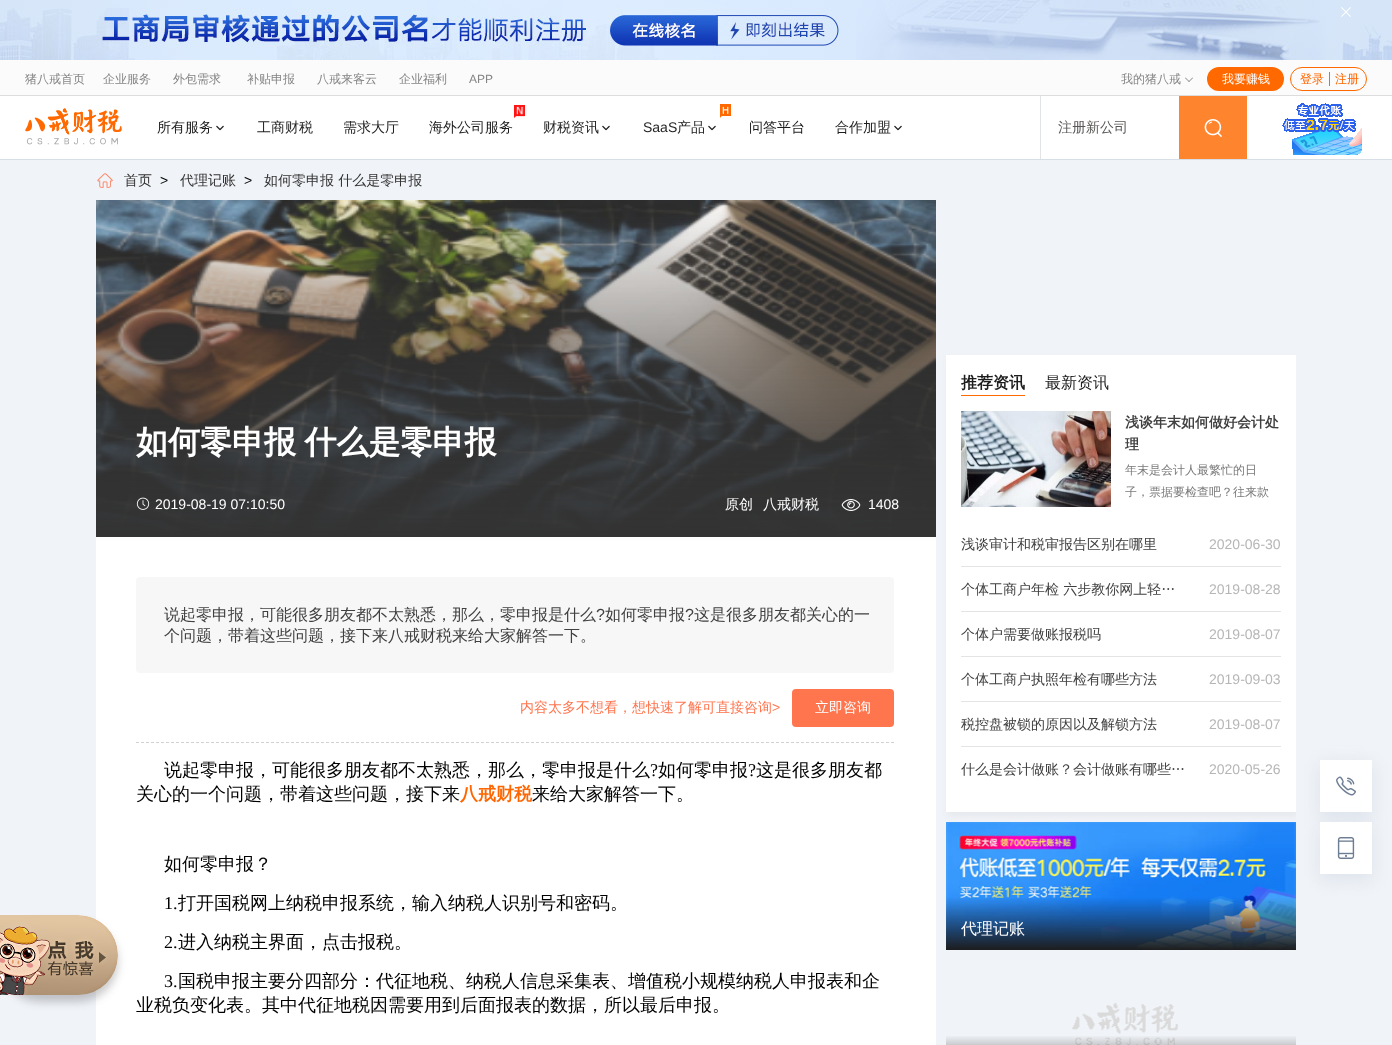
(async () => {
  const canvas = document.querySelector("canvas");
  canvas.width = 1392;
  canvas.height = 1045;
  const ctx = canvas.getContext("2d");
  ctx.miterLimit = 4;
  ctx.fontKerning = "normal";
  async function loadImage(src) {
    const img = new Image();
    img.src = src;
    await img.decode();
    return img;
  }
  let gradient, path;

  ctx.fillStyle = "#ffffff";
  ctx.fillRect(0, 0, 1392, 1045);
  ctx.drawImage(await loadImage("img/1.png"), 0, 0, 1392, 60);
  ctx.drawImage(await loadImage("img/2.png"), 1341, 7, 10, 10);
  ctx.fillStyle = "#fbfbfb";
  ctx.fillRect(0, 60, 1392, 35);
  ctx.fillStyle = "#dddddd";
  ctx.fillRect(0, 95, 1392, 1);
  ctx.fillStyle = "#848484";
  path = new Path2D("M1189 82L1185 78L1185.5 77.5L1189.5 81.5Z");
  ctx.fill(path);
  path = new Path2D("M1189 82L1188.5 81.5L1192.5 77.5L1193 78Z");
  ctx.fill(path);
  ctx.fillStyle = "#ff6900";
  ctx.beginPath();
  ctx.roundRect(1207, 67, 77, 24, 12);
  ctx.fill();
  ctx.beginPath();
  ctx.roundRect(1290.5, 67.5, 76, 23, 11.5);
  ctx.strokeStyle = "#ff6900";
  ctx.stroke();
  ctx.fillRect(1329, 72, 1, 14);
  ctx.drawImage(await loadImage("img/3.png"), 25, 108, 97, 37);
  ctx.drawImage(await loadImage("img/4.png"), 216, 125, 8, 6);
  ctx.drawImage(await loadImage("img/5.png"), 514, 105, 11, 13);
  ctx.drawImage(await loadImage("img/4.png"), 602, 125, 8, 6);
  ctx.drawImage(await loadImage("img/6.png"), 720, 104, 11, 14);
  ctx.drawImage(await loadImage("img/4.png"), 708, 125, 8, 6);
  ctx.drawImage(await loadImage("img/4.png"), 894, 125, 8, 6);
  ctx.fillStyle = "#e1e3e5";
  ctx.fillRect(1040, 96, 1, 63);
  ctx.fillStyle = "#ff842e";
  ctx.fillRect(1179, 96, 68, 63);
  ctx.drawImage(await loadImage("img/7.png"), 1204, 119, 18, 18);
  ctx.drawImage(await loadImage("img/8.png"), 1282, 103, 80, 52);
  ctx.fillStyle = "#d7dee6";
  ctx.fillRect(0, 159, 1392, 1);
  ctx.fillStyle = "#f0f3f7";
  ctx.fillRect(0, 160, 1392, 885);
  ctx.drawImage(await loadImage("img/9.png"), 97, 173, 16, 15);
  ctx.fillStyle = "#ffffff";
  ctx.fillRect(96, 537, 840, 508);
  ctx.drawImage(await loadImage("img/10.png"), 96, 200, 840, 337);
  ctx.drawImage(await loadImage("img/11.png"), 136, 497, 14, 13);
  ctx.drawImage(await loadImage("img/12.png"), 841, 499, 20, 12);
  ctx.fillStyle = "#f7f7f7";
  ctx.beginPath();
  ctx.roundRect(136, 577, 758, 96, 4);
  ctx.fill();
  path = new Path2D("M136 742.5H894");
  ctx.strokeStyle = "#d0d1d1";
  ctx.setLineDash([3, 2]);
  ctx.stroke(path);
  ctx.fillStyle = "#ff754e";
  ctx.beginPath();
  ctx.roundRect(792, 689, 102, 38, 4);
  ctx.fill();
  ctx.save();
  ctx.beginPath();
  ctx.rect(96, 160, 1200, 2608);
  ctx.clip();
  ctx.fillStyle = "#e5e8ec";
  ctx.filter = "blur(3px)";
  ctx.beginPath();
  ctx.rect(948, 359, 350, 457);
  ctx.fill();
  ctx.filter = "none";
  ctx.restore();
  ctx.fillStyle = "#ffffff";
  ctx.fillRect(946, 355, 350, 457);
  ctx.fillStyle = "#ff6900";
  ctx.fillRect(961, 395, 64, 1);
  ctx.drawImage(await loadImage("img/13.png"), 961, 411, 150, 96);
  for (const [x, y, w, h, color] of [
    [961, 566, 320, 1, "#e4e4e4"],
    [961, 611, 320, 1, "#e4e4e4"],
    [961, 656, 320, 1, "#e4e4e4"],
    [961, 701, 320, 1, "#e4e4e4"],
    [961, 746, 320, 1, "#e4e4e4"],
  ]) {
    ctx.fillStyle = color;
    ctx.fillRect(x, y, w, h);
  }
  ctx.drawImage(await loadImage("img/14.png"), 946, 822, 350, 128);
  ctx.drawImage(await loadImage("img/15.png"), 1072, 1003, 106, 42);
  gradient = ctx.createLinearGradient(1121, 1035, 1121, 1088);
  gradient.addColorStop(0, "rgba(29, 29, 29, 0)");
  gradient.addColorStop(1, "#1d1d1d");
  ctx.fillStyle = gradient;
  ctx.fillRect(946, 1036, 350, 9);
  ctx.fillStyle = "rgba(181, 194, 213, 0.34)";
  ctx.filter = "blur(9px)";
  ctx.beginPath();
  ctx.rect(1320, 765, 52, 52);
  ctx.fill();
  ctx.filter = "none";
  ctx.fillStyle = "#ffffff";
  ctx.fillRect(1320, 760, 52, 52);
  ctx.drawImage(await loadImage("img/16.png"), 1336, 776, 20, 20);
  ctx.fillStyle = "rgba(181, 194, 213, 0.34)";
  ctx.filter = "blur(9px)";
  ctx.beginPath();
  ctx.rect(1320, 827, 52, 52);
  ctx.fill();
  ctx.filter = "none";
  ctx.fillStyle = "#ffffff";
  ctx.fillRect(1320, 822, 52, 52);
  ctx.drawImage(await loadImage("img/17.png"), 1337, 837, 18, 22);
  ctx.fillStyle = "rgba(43, 45, 50, 0.25)";
  ctx.filter = "blur(4.5px)";
  ctx.beginPath();
  ctx.roundRect(0, 922, 118, 80, 40);
  ctx.fill();
  ctx.filter = "none";
  ctx.drawImage(await loadImage("img/18.png"), 0, 915, 118, 80);
  ctx.font = "500 12px WenQuanYi Zen Hei";
  ctx.fillStyle = "#848484";
  for (const [text, x, y] of [
    ["猪八戒首页", 25, 83],
    ["企业服务", 103, 83],
    ["外包需求", 173, 83],
    ["补贴申报", 247, 83],
    ["八戒来客云", 317, 83],
    ["企业福利", 399, 83],
  ]) {
    ctx.fillText(text, x, y);
  }
  ctx.font = "12px Liberation Sans";
  ctx.fillText("APP", 469, 83);
  ctx.font = "500 12px WenQuanYi Zen Hei";
  ctx.fillText("我的猪八戒", 1121, 83);
  ctx.fillStyle = "#ffffff";
  ctx.fillText("我要赚钱", 1222, 83);
  ctx.fillStyle = "#ff6600";
  ctx.fillText("登录", 1300, 83);
  ctx.fillText("注册", 1335, 83);
  ctx.font = "500 14px WenQuanYi Zen Hei";
  ctx.fillStyle = "#1d1d1d";
  for (const [text, x, y] of [
    ["所有服务", 157, 132],
    ["工商财税", 257, 132],
    ["需求大厅", 343, 132],
    ["海外公司服务", 429, 132],
    ["财税资讯", 543, 132],
  ]) {
    ctx.fillText(text, x, y);
  }
  ctx.font = "14px Liberation Sans";
  ctx.fillText("SaaS", 643, 132);
  ctx.font = "500 14px WenQuanYi Zen Hei";
  for (const [text, x, y] of [
    ["产品", 677, 132],
    ["问答平台", 749, 132],
    ["合作加盟", 835, 132],
  ]) {
    ctx.fillText(text, x, y);
  }
  ctx.fillStyle = "#5a5856";
  ctx.fillText("注册新公司", 1058, 132);
  ctx.fillStyle = "#333333";
  ctx.fillText("首页", 124, 185);
  ctx.font = "14px Liberation Sans";
  ctx.fillStyle = "#000000";
  ctx.fillText(">", 160, 185);
  ctx.font = "500 14px WenQuanYi Zen Hei";
  ctx.fillStyle = "#333333";
  ctx.fillText("代理记账", 180, 185);
  ctx.font = "14px Liberation Sans";
  ctx.fillStyle = "#000000";
  ctx.fillText(">", 244, 185);
  ctx.font = "500 14px WenQuanYi Zen Hei";
  ctx.fillStyle = "#333333";
  ctx.fillText("如何零申报 什么是零申报", 264, 185);
  ctx.wordSpacing = "-1px";
  ctx.font = "bold 32px WenQuanYi Zen Hei";
  ctx.fillStyle = "#ffffff";
  ctx.fillText("如何零申报 什么是零申报", 136, 453);
  ctx.wordSpacing = "0px";
  ctx.font = "14px Liberation Sans";
  ctx.fillText("2019-08-19 07:10:50", 155, 509);
  ctx.font = "500 14px WenQuanYi Zen Hei";
  ctx.fillText("原创", 725, 509);
  ctx.fillText("八戒财税", 763, 509);
  ctx.font = "14px Liberation Sans";
  ctx.fillText("1408", 868, 509);
  ctx.font = "500 16px WenQuanYi Zen Hei";
  ctx.fillStyle = "#404040";
  ctx.fillText("说起零申报，可能很多朋友都不太熟悉，那么，零申报是什么", 164, 620);
  ctx.font = "16px Liberation Sans";
  ctx.fillText("?", 596, 620);
  ctx.font = "500 16px WenQuanYi Zen Hei";
  ctx.fillText("如何零申报", 605, 620);
  ctx.font = "16px Liberation Sans";
  ctx.fillText("?", 685, 620);
  ctx.font = "500 16px WenQuanYi Zen Hei";
  ctx.fillText("这是很多朋友都关心的一", 694, 620);
  ctx.fillText("个问题，带着这些问题，接下来八戒财税来给大家解答一下。", 164, 641);
  ctx.font = "500 14px WenQuanYi Zen Hei";
  ctx.fillStyle = "#ff754e";
  ctx.fillText("内容太多不想看，想快速了解可直接咨询", 520, 712);
  ctx.font = "14px Liberation Sans";
  ctx.fillText(">", 772, 712);
  ctx.font = "500 14px WenQuanYi Zen Hei";
  ctx.fillStyle = "#ffffff";
  ctx.fillText("立即咨询", 815, 712);
  ctx.font = "500 18px WenQuanYi Zen Hei";
  ctx.fillStyle = "#000000";
  ctx.fillText("说起零申报，可能很多朋友都不太熟悉，那么，零申报是什么", 164, 776);
  ctx.font = "18px Liberation Serif";
  ctx.fillText("?", 650, 776);
  ctx.font = "500 18px WenQuanYi Zen Hei";
  ctx.fillText("如何零申报", 658, 776);
  ctx.font = "18px Liberation Serif";
  ctx.fillText("?", 748, 776);
  ctx.font = "500 18px WenQuanYi Zen Hei";
  ctx.fillText("这是很多朋友都", 756, 776);
  ctx.fillText("关心的一个问题，带着这些问题，接下来", 136, 800);
  ctx.font = "bold 18px WenQuanYi Zen Hei";
  ctx.fillStyle = "#ff6600";
  ctx.fillText("八戒财税", 460, 800);
  ctx.font = "500 18px WenQuanYi Zen Hei";
  ctx.fillStyle = "#000000";
  ctx.fillText("来给大家解答一下。", 532, 800);
  ctx.fillText("如何零申报？", 164, 870);
  ctx.font = "18px Liberation Serif";
  ctx.fillText("1.", 164, 909);
  ctx.font = "500 18px WenQuanYi Zen Hei";
  ctx.fillText("打开国税网上纳税申报系统，输入纳税人识别号和密码。", 178, 909);
  ctx.font = "18px Liberation Serif";
  ctx.fillText("2.", 164, 948);
  ctx.font = "500 18px WenQuanYi Zen Hei";
  ctx.fillText("进入纳税主界面，点击报税。", 178, 948);
  ctx.font = "18px Liberation Serif";
  ctx.fillText("3.", 164, 987);
  ctx.font = "500 18px WenQuanYi Zen Hei";
  ctx.fillText("国税申报主要分四部分：代征地税、纳税人信息采集表、增值税小规模纳税人申报表和企", 178, 987);
  ctx.fillText("业税负变化表。其中代征地税因需要用到后面报表的数据，所以最后申报。", 136, 1011);
  ctx.font = "bold 16px WenQuanYi Zen Hei";
  ctx.fillStyle = "#1d1d1d";
  ctx.fillText("推荐资讯", 961, 388);
  ctx.font = "500 16px WenQuanYi Zen Hei";
  ctx.fillText("最新资讯", 1045, 388);
  ctx.font = "bold 14px WenQuanYi Zen Hei";
  ctx.fillStyle = "#404040";
  ctx.fillText("浅谈年末如何做好会计处", 1125, 427);
  ctx.fillText("理", 1125, 449);
  ctx.font = "500 12px WenQuanYi Zen Hei";
  ctx.fillStyle = "#797979";
  ctx.fillText("年末是会计人最繁忙的日", 1125, 474);
  ctx.fillText("子，票据要检查吧？往来款", 1125, 496);
  ctx.font = "500 14px WenQuanYi Zen Hei";
  ctx.fillStyle = "#404040";
  ctx.fillText("浅谈审计和税审报告区别在哪里", 961, 549);
  ctx.font = "14px Liberation Sans";
  ctx.fillStyle = "#b6b6b6";
  ctx.fillText("2020-06-30", 1209, 549);
  ctx.font = "500 14px WenQuanYi Zen Hei";
  ctx.fillStyle = "#404040";
  ctx.fillText("个体工商户年检 六步教你网上轻…", 961, 594);
  ctx.font = "14px Liberation Sans";
  ctx.fillStyle = "#b6b6b6";
  ctx.fillText("2019-08-28", 1209, 594);
  ctx.font = "500 14px WenQuanYi Zen Hei";
  ctx.fillStyle = "#404040";
  ctx.fillText("个体户需要做账报税吗", 961, 639);
  ctx.font = "14px Liberation Sans";
  ctx.fillStyle = "#b6b6b6";
  ctx.fillText("2019-08-07", 1209, 639);
  ctx.font = "500 14px WenQuanYi Zen Hei";
  ctx.fillStyle = "#404040";
  ctx.fillText("个体工商户执照年检有哪些方法", 961, 684);
  ctx.font = "14px Liberation Sans";
  ctx.fillStyle = "#b6b6b6";
  ctx.fillText("2019-09-03", 1209, 684);
  ctx.font = "500 14px WenQuanYi Zen Hei";
  ctx.fillStyle = "#404040";
  ctx.fillText("税控盘被锁的原因以及解锁方法", 961, 729);
  ctx.font = "14px Liberation Sans";
  ctx.fillStyle = "#b6b6b6";
  ctx.fillText("2019-08-07", 1209, 729);
  ctx.font = "500 14px WenQuanYi Zen Hei";
  ctx.fillStyle = "#404040";
  ctx.fillText("什么是会计做账？会计做账有哪些…", 961, 774);
  ctx.font = "14px Liberation Sans";
  ctx.fillStyle = "#b6b6b6";
  ctx.fillText("2020-05-26", 1209, 774);
  ctx.font = "500 16px WenQuanYi Zen Hei";
  ctx.fillStyle = "#ffffff";
  ctx.fillText("代理记账", 961, 934);
})();
